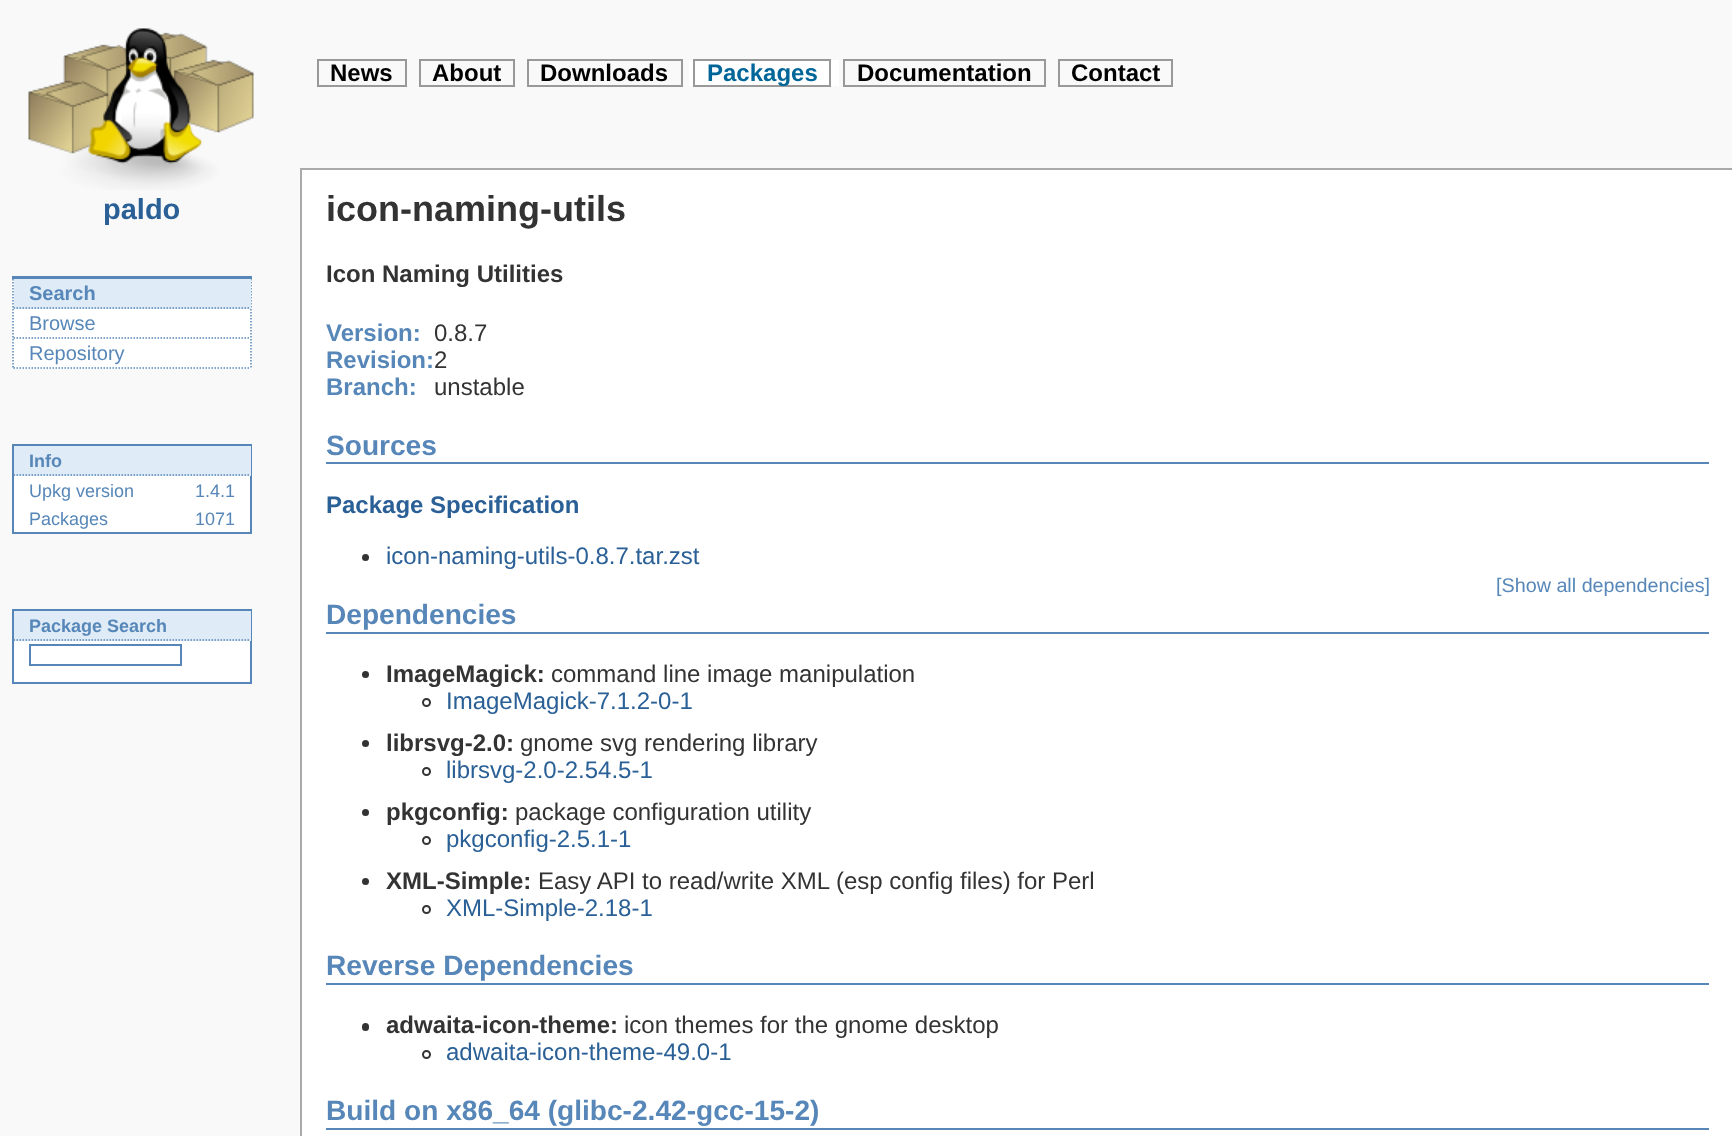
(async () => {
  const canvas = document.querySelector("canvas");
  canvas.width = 1732;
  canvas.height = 1136;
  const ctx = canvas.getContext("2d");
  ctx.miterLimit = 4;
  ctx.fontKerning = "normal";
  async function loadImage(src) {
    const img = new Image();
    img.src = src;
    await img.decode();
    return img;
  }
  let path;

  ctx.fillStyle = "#f9f9f9";
  ctx.fillRect(0, 0, 1732, 1136);
  ctx.strokeStyle = "#999999";
  ctx.lineWidth = 2;
  ctx.strokeRect(318, 60, 88, 26);
  ctx.strokeRect(420, 60, 94, 26);
  ctx.strokeRect(528, 60, 154, 26);
  ctx.fillStyle = "#ffffff";
  ctx.fillRect(689, 60, 150, 26);
  ctx.strokeRect(694, 60, 136, 26);
  ctx.strokeRect(844, 60, 201, 26);
  ctx.strokeRect(1059, 60, 113, 26);
  ctx.fillRect(12, 279, 240, 90);
  ctx.fillStyle = "#5787b8";
  ctx.fillRect(12, 276, 240, 3);
  path = new Path2D("M251 276V369");
  ctx.strokeStyle = "#5787b8";
  ctx.lineWidth = 1.5;
  ctx.setLineDash([1.5, 1.5]);
  ctx.stroke(path);
  path = new Path2D("M13 276V369");
  ctx.stroke(path);
  ctx.fillStyle = "#dfebf7";
  ctx.fillRect(14, 279, 237, 30);
  path = new Path2D("M13.5 308H250.5");
  ctx.stroke(path);
  path = new Path2D("M13.5 338H250.5");
  ctx.stroke(path);
  path = new Path2D("M13.5 368H250.5");
  ctx.stroke(path);
  ctx.fillStyle = "#ffffff";
  ctx.fillRect(14, 476, 236, 56);
  ctx.lineWidth = 2;
  ctx.setLineDash([]);
  ctx.strokeRect(13, 445, 238, 88);
  ctx.fillStyle = "#dfebf7";
  ctx.fillRect(14, 446, 237, 30);
  path = new Path2D("M13.5 475H250.5");
  ctx.lineWidth = 1.5;
  ctx.setLineDash([1.5, 1.5]);
  ctx.stroke(path);
  ctx.fillStyle = "#ffffff";
  ctx.fillRect(14, 641, 236, 41);
  ctx.lineWidth = 2;
  ctx.setLineDash([]);
  ctx.strokeRect(13, 610, 238, 73);
  ctx.fillStyle = "#dfebf7";
  ctx.fillRect(14, 611, 237, 30);
  path = new Path2D("M13.5 640H250.5");
  ctx.lineWidth = 1.5;
  ctx.setLineDash([1.5, 1.5]);
  ctx.stroke(path);
  ctx.lineWidth = 2;
  ctx.setLineDash([]);
  ctx.strokeRect(30, 645, 151, 20);
  for (const [x, y, w, h, color] of [
    [302, 170, 1430, 966, "#ffffff"],
    [300, 168, 1432, 2, "#aaaaaa"],
    [300, 168, 2, 968, "#aaaaaa"],
    [326, 462, 1383, 2, "#5787b8"],
  ]) {
    ctx.fillStyle = color;
    ctx.fillRect(x, y, w, h);
  }
  ctx.fillStyle = "#333333";
  ctx.beginPath();
  ctx.arc(365.5, 557.5, 3.5, 0, Math.PI * 2);
  ctx.fill();
  ctx.fillStyle = "#5787b8";
  ctx.fillRect(326, 632, 1383, 2);
  ctx.fillStyle = "#333333";
  ctx.beginPath();
  ctx.arc(365.5, 674.5, 3.5, 0, Math.PI * 2);
  ctx.fill();
  ctx.beginPath();
  ctx.arc(426.5, 702.5, 3.5, 0, Math.PI * 2);
  ctx.strokeStyle = "#333333";
  ctx.stroke();
  ctx.beginPath();
  ctx.arc(365.5, 743.5, 3.5, 0, Math.PI * 2);
  ctx.fill();
  ctx.beginPath();
  ctx.arc(426.5, 771.5, 3.5, 0, Math.PI * 2);
  ctx.stroke();
  ctx.beginPath();
  ctx.arc(365.5, 812.5, 3.5, 0, Math.PI * 2);
  ctx.fill();
  ctx.beginPath();
  ctx.arc(426.5, 840.5, 3.5, 0, Math.PI * 2);
  ctx.stroke();
  ctx.beginPath();
  ctx.arc(365.5, 881.5, 3.5, 0, Math.PI * 2);
  ctx.fill();
  ctx.beginPath();
  ctx.arc(426.5, 909.5, 3.5, 0, Math.PI * 2);
  ctx.stroke();
  ctx.fillStyle = "#5787b8";
  ctx.fillRect(326, 983, 1383, 2);
  ctx.fillStyle = "#333333";
  ctx.beginPath();
  ctx.roundRect(362, 1023, 7, 8, 3.5);
  ctx.fill();
  ctx.beginPath();
  ctx.arc(426.5, 1054.5, 3.5, 0, Math.PI * 2);
  ctx.stroke();
  ctx.fillStyle = "#5787b8";
  ctx.fillRect(326, 1128, 1383, 2);
  ctx.drawImage(await loadImage("img/1.png"), 28, 28, 226, 162);
  ctx.font = "bold 24px Liberation Sans";
  ctx.fillStyle = "#000000";
  for (const [text, x, y] of [
    ["News", 330, 81],
    ["About", 432, 81],
    ["Downloads", 540, 81],
  ]) {
    ctx.fillText(text, x, y);
  }
  ctx.fillStyle = "#006699";
  ctx.fillText("Packages", 707, 81);
  ctx.fillStyle = "#000000";
  ctx.fillText("Documentation", 857, 81);
  ctx.fillText("Contact", 1071, 81);
  ctx.font = "bold 20px Liberation Sans";
  ctx.fillStyle = "#5787b8";
  ctx.fillText("Search", 29, 300);
  ctx.font = "20px Liberation Sans";
  ctx.fillText("Browse", 29, 330);
  ctx.fillText("Repository", 29, 360);
  ctx.font = "bold 18px Liberation Sans";
  ctx.fillText("Info", 29, 467);
  ctx.font = "18px Liberation Sans";
  for (const [text, x, y] of [
    ["Upkg version", 29, 497],
    ["1.4.1", 195, 497],
    ["Packages", 29, 525],
    ["1071", 195, 525],
  ]) {
    ctx.fillText(text, x, y);
  }
  ctx.font = "bold 18px Liberation Sans";
  ctx.fillText("Package Search", 29, 632);
  ctx.font = "bold 36px Liberation Sans";
  ctx.fillStyle = "#333333";
  ctx.fillText("icon-naming-utils", 326, 221);
  ctx.font = "bold 24px Liberation Sans";
  ctx.fillText("Icon Naming Utilities", 326, 282);
  ctx.fillStyle = "#5787b8";
  ctx.fillText("Version:", 326, 341);
  ctx.font = "24px Liberation Sans";
  ctx.fillStyle = "#333333";
  ctx.fillText("0.8.7", 434, 341);
  ctx.font = "bold 24px Liberation Sans";
  ctx.fillStyle = "#5787b8";
  ctx.fillText("Revision:", 326, 368);
  ctx.font = "24px Liberation Sans";
  ctx.fillStyle = "#333333";
  ctx.fillText("2", 434, 368);
  ctx.font = "bold 24px Liberation Sans";
  ctx.fillStyle = "#5787b8";
  ctx.fillText("Branch:", 326, 395);
  ctx.font = "24px Liberation Sans";
  ctx.fillStyle = "#333333";
  ctx.fillText("unstable", 434, 395);
  ctx.font = "bold 28.1px Liberation Sans";
  ctx.fillStyle = "#5787b8";
  ctx.fillText("Sources", 326, 455);
  ctx.font = "bold 24px Liberation Sans";
  ctx.fillStyle = "#2a6096";
  ctx.fillText("Package Specification", 326, 513);
  ctx.font = "24px Liberation Sans";
  ctx.fillText("icon-naming-utils-0.8.7.tar.zst", 386, 564);
  ctx.font = "19.75px Liberation Sans";
  ctx.fillStyle = "#5787b8";
  ctx.fillText("[Show all dependencies]", 1496, 592);
  ctx.font = "bold 28.1px Liberation Sans";
  ctx.fillText("Dependencies", 326, 624);
  ctx.font = "bold 24px Liberation Sans";
  ctx.fillStyle = "#333333";
  ctx.fillText("ImageMagick:", 386, 682);
  ctx.font = "24px Liberation Sans";
  ctx.fillText("command line image manipulation", 551, 682);
  ctx.fillStyle = "#2a6096";
  ctx.fillText("ImageMagick-7.1.2-0-1", 446, 709);
  ctx.font = "bold 24px Liberation Sans";
  ctx.fillStyle = "#333333";
  ctx.fillText("librsvg-2.0:", 386, 751);
  ctx.font = "24px Liberation Sans";
  ctx.fillText("gnome svg rendering library", 520, 751);
  ctx.fillStyle = "#2a6096";
  ctx.fillText("librsvg-2.0-2.54.5-1", 446, 778);
  ctx.font = "bold 24px Liberation Sans";
  ctx.fillStyle = "#333333";
  ctx.fillText("pkgconfig:", 386, 820);
  ctx.font = "24px Liberation Sans";
  ctx.fillText("package configuration utility", 515, 820);
  ctx.fillStyle = "#2a6096";
  ctx.fillText("pkgconfig-2.5.1-1", 446, 847);
  ctx.font = "bold 24px Liberation Sans";
  ctx.fillStyle = "#333333";
  ctx.fillText("XML-Simple:", 386, 889);
  ctx.font = "24px Liberation Sans";
  ctx.fillText("Easy API to read/write XML (esp config files) for Perl", 538, 889);
  ctx.fillStyle = "#2a6096";
  ctx.fillText("XML-Simple-2.18-1", 446, 916);
  ctx.font = "bold 28.1px Liberation Sans";
  ctx.fillStyle = "#5787b8";
  ctx.fillText("Reverse Dependencies", 326, 975);
  ctx.font = "bold 24px Liberation Sans";
  ctx.fillStyle = "#333333";
  ctx.fillText("adwaita-icon-theme:", 386, 1033);
  ctx.font = "24px Liberation Sans";
  ctx.fillText("icon themes for the gnome desktop", 624, 1033);
  ctx.fillStyle = "#2a6096";
  ctx.fillText("adwaita-icon-theme-49.0-1", 446, 1060);
  ctx.font = "bold 28.1px Liberation Sans";
  ctx.fillStyle = "#5787b8";
  ctx.fillText("Build on x86_64 (glibc-2.42-gcc-15-2)", 326, 1120);
  ctx.font = "bold 29px Liberation Sans";
  ctx.fillStyle = "#2a6096";
  ctx.fillText("paldo", 103, 219);
})();
